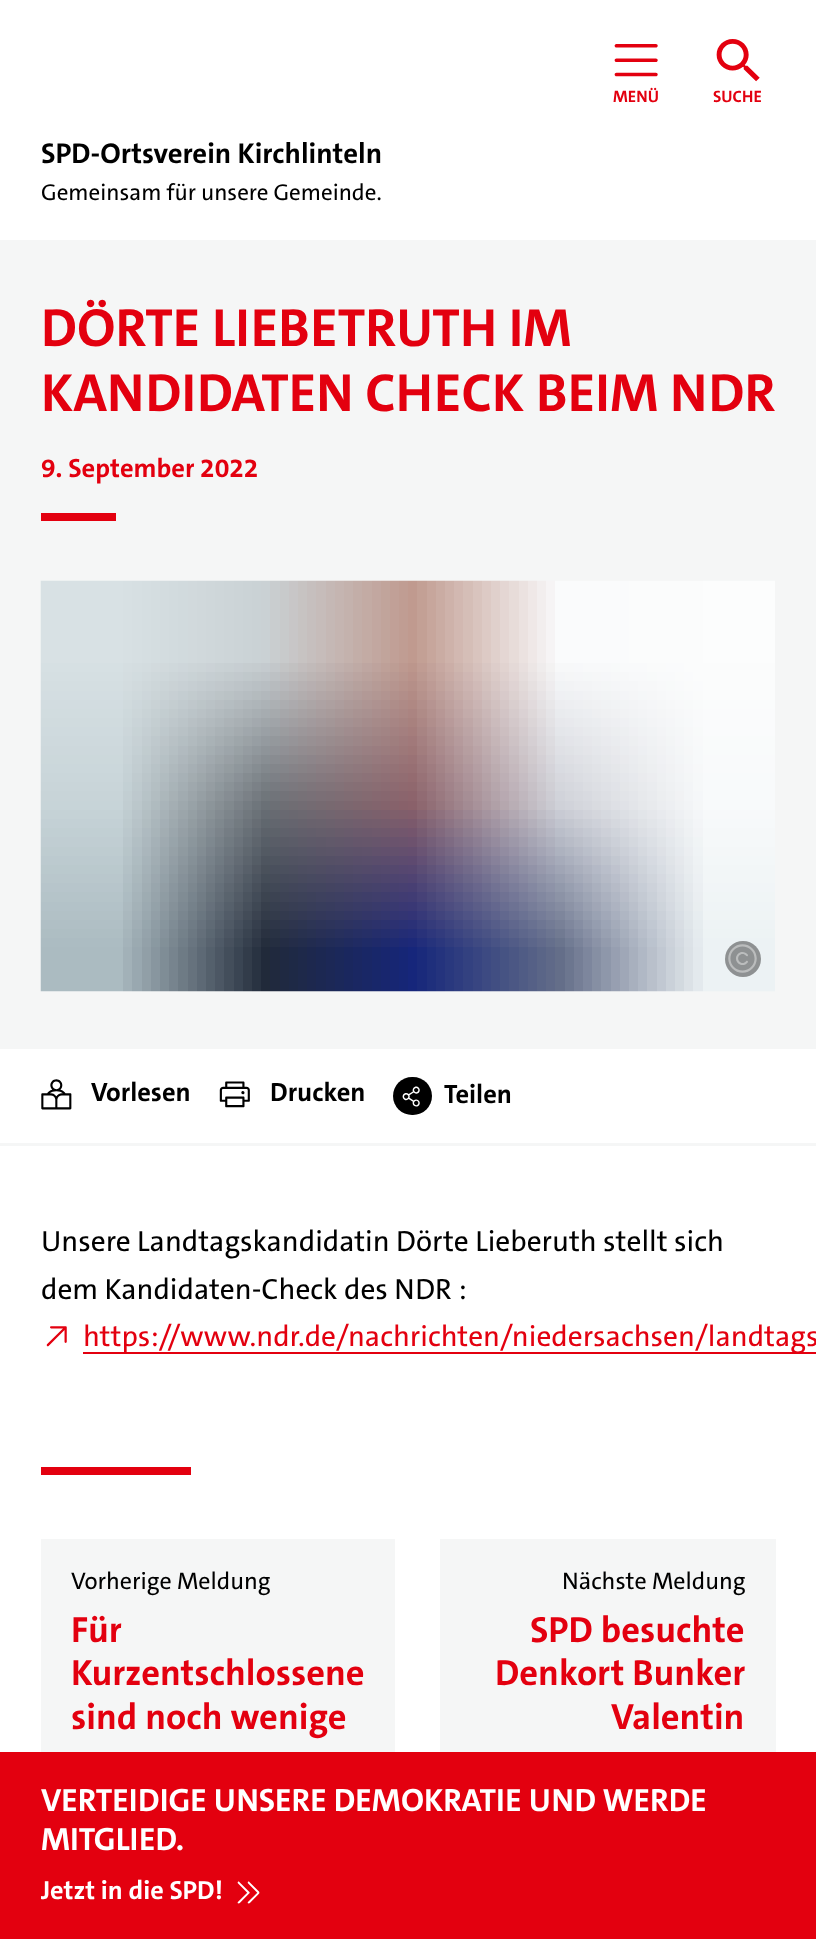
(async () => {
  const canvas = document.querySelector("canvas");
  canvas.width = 816;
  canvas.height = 1939;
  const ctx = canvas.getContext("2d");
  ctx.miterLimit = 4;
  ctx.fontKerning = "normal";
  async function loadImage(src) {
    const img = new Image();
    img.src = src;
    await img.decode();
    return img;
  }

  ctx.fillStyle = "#ffffff";
  ctx.fillRect(0, 0, 816, 1939);
  ctx.drawImage(await loadImage("img/1.png"), 614, 44, 44, 33);
  ctx.drawImage(await loadImage("img/2.png"), 716, 39, 44, 43);
  ctx.fillStyle = "#f5f6f6";
  ctx.fillRect(0, 240, 816, 809);
  ctx.fillStyle = "#e3000f";
  ctx.fillRect(41, 513, 75, 8);
  ctx.drawImage(await loadImage("img/3.png"), 40, 580, 735, 412);
  ctx.fillStyle = "#8e9192";
  ctx.beginPath();
  ctx.arc(743, 959, 18, 0, Math.PI * 2);
  ctx.fill();
  ctx.drawImage(await loadImage("img/4.png"), 728, 944, 29, 29);
  ctx.fillStyle = "#f5f6f6";
  ctx.fillRect(0, 1143, 816, 3);
  ctx.drawImage(await loadImage("img/5.png"), 41, 1079, 31, 31);
  ctx.drawImage(await loadImage("img/6.png"), 219, 1081, 31, 27);
  ctx.fillStyle = "#000000";
  ctx.beginPath();
  ctx.roundRect(393, 1077, 39, 38, 19);
  ctx.fill();
  ctx.drawImage(await loadImage("img/7.png"), 402, 1086, 18, 21);
  ctx.drawImage(await loadImage("img/8.png"), 46, 1326, 21, 21);
  for (const [x, y, w, h, color] of [
    [83, 1352, 733, 2, "#e3000f"],
    [41, 1467, 150, 8, "#e3000f"],
    [41, 1539, 354, 213, "#f5f6f6"],
    [440, 1539, 336, 213, "#f5f6f6"],
    [0, 1752, 816, 187, "#e3000f"],
  ]) {
    ctx.fillStyle = color;
    ctx.fillRect(x, y, w, h);
  }
  ctx.drawImage(await loadImage("img/9.png"), 237, 1881, 23, 23);
  ctx.font = "bold 16.5px 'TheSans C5'";
  ctx.fillText("MENÜ", 613, 102);
  ctx.fillText("SUCHE", 713, 102);
  ctx.font = "bold 28.75px 'TheSans C5'";
  ctx.fillStyle = "#000000";
  ctx.fillText("SPD-Ortsverein Kirchlinteln", 41, 163);
  ctx.font = "500 23px 'TheSans C5'";
  ctx.fillText("Gemeinsam für unsere Gemeinde.", 41, 200);
  ctx.font = "bold 54px 'TheSans C5'";
  ctx.fillStyle = "#e3000f";
  ctx.fillText("DÖRTE LIEBETRUTH IM", 41, 346);
  ctx.fillText("KANDIDATEN CHECK BEIM NDR", 41, 411);
  ctx.font = "bold 26.5px 'TheSans C5'";
  ctx.fillText("9. September 2022", 41, 477);
  ctx.fillStyle = "#000000";
  for (const [text, x, y] of [
    ["Vorlesen", 91, 1101],
    ["Drucken", 270, 1101],
    ["Teilen", 444, 1103],
  ]) {
    ctx.fillText(text, x, y);
  }
  ctx.font = "500 29.4px 'TheSans C5'";
  ctx.fillText("Unsere Landtagskandidatin Dörte Lieberuth stellt sich", 41, 1251);
  ctx.fillText("dem Kandidaten-Check des NDR :", 41, 1299);
  ctx.fillStyle = "#e3000f";
  ctx.fillText("https://www.ndr.de/nachrichten/niedersachsen/landtags", 83, 1346);
  ctx.font = "500 24px 'TheSans C5'";
  ctx.fillStyle = "#000000";
  ctx.fillText("Vorherige Meldung", 71, 1589);
  ctx.font = "bold 36.5px 'TheSans C5'";
  ctx.fillStyle = "#e3000f";
  for (const [text, x, y] of [
    ["Für", 71, 1642],
    ["Kurzentschlossene", 71, 1685],
    ["sind noch wenige", 71, 1729],
  ]) {
    ctx.fillText(text, x, y);
  }
  ctx.font = "500 24px 'TheSans C5'";
  ctx.fillStyle = "#000000";
  ctx.fillText("Nächste Meldung", 562, 1589);
  ctx.font = "bold 36.5px 'TheSans C5'";
  ctx.fillStyle = "#e3000f";
  for (const [text, x, y] of [
    ["SPD besuchte", 530, 1642],
    ["Denkort Bunker", 495, 1685],
    ["Valentin", 611, 1729],
  ]) {
    ctx.fillText(text, x, y);
  }
  ctx.font = "bold 32.4px 'TheSans C5'";
  ctx.fillStyle = "#ffffff";
  ctx.fillText("VERTEIDIGE UNSERE DEMOKRATIE UND WERDE", 41, 1811);
  ctx.fillText("MITGLIED.", 41, 1850);
  ctx.font = "bold 26.25px 'TheSans C5'";
  ctx.fillText("Jetzt in die SPD!", 41, 1899);
})();
